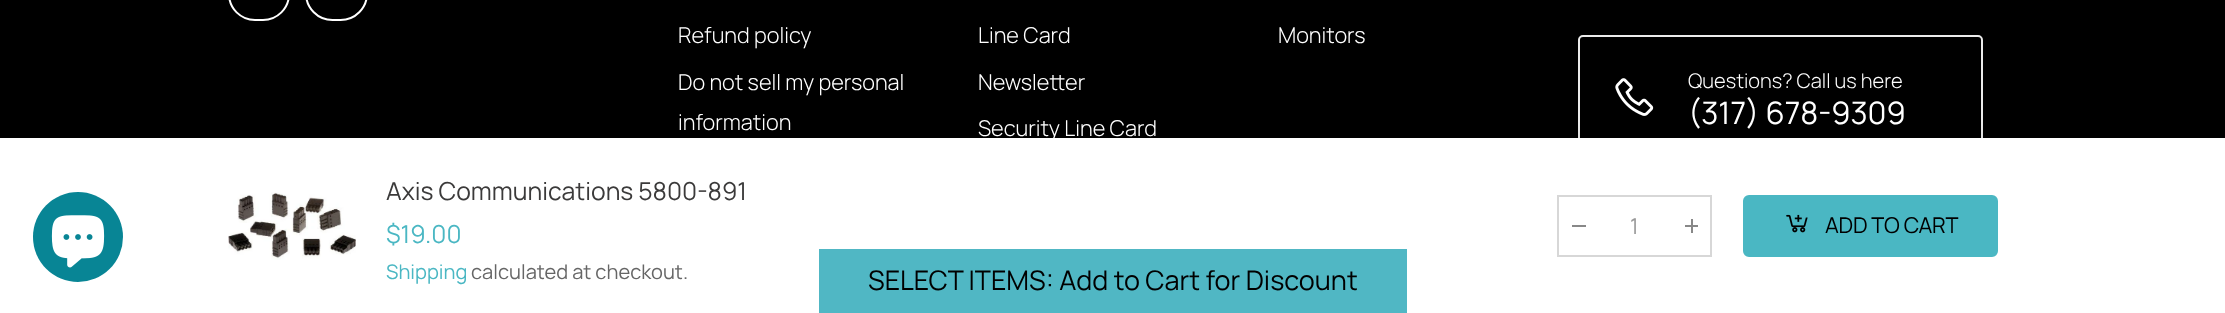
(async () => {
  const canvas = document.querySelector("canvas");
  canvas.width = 2225;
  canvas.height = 313;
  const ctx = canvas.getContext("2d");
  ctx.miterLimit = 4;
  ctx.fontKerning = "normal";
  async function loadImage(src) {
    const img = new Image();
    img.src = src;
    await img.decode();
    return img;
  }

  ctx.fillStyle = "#000000";
  ctx.fillRect(0, 0, 2225, 313);
  ctx.beginPath();
  ctx.roundRect(1579, 36, 403, 122, 4);
  ctx.strokeStyle = "#ebebeb";
  ctx.lineWidth = 2;
  ctx.stroke();
  ctx.drawImage(await loadImage("img/2.png"), 1615, 78, 39, 38);
  ctx.fillStyle = "rgba(0, 0, 0, 0.05)";
  ctx.filter = "blur(7.5px)";
  ctx.beginPath();
  ctx.rect(0, 131, 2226, 175);
  ctx.fill();
  ctx.filter = "none";
  ctx.fillStyle = "#ffffff";
  ctx.fillRect(0, 138, 2225, 175);
  ctx.fillStyle = "#088595";
  ctx.beginPath();
  ctx.arc(78, 237, 45, 0, Math.PI * 2);
  ctx.fill();
  ctx.drawImage(await loadImage("img/1.png"), 51, 215, 54, 53);
  ctx.beginPath();
  ctx.roundRect(229, -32, 60, 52, 30);
  ctx.strokeStyle = "#ffffff";
  ctx.stroke();
  ctx.beginPath();
  ctx.roundRect(306, -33, 61, 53, 30.5);
  ctx.stroke();
  ctx.drawImage(await loadImage("img/3.png"), 228, 192, 128, 68);
  ctx.strokeStyle = "#d7d7d7";
  ctx.strokeRect(1558, 196, 153, 60);
  for (const [x, y, w, h, color] of [
    [1572, 225, 14, 2, "#888888"],
    [1685, 225, 13, 2, "#888888"],
    [1691, 219, 2, 14, "#888888"],
  ]) {
    ctx.fillStyle = color;
    ctx.fillRect(x, y, w, h);
  }
  ctx.fillStyle = "#4ab7c3";
  ctx.beginPath();
  ctx.roundRect(1744, 196, 253, 60, 5);
  ctx.fill();
  ctx.strokeStyle = "#4ab7c3";
  ctx.stroke();
  ctx.drawImage(await loadImage("img/4.png"), 1786, 214, 22, 19);
  ctx.fillStyle = "#50b7c4";
  ctx.fillRect(819, 249, 588, 64);
  ctx.font = "300 21.75px Manrope";
  ctx.fillStyle = "#ffffff";
  for (const [text, x, y] of [
    ["Refund policy", 678, 43],
    ["Do not sell my personal", 678, 90],
    ["information", 678, 130],
    ["Line Card", 978, 43],
    ["Newsletter", 978, 90],
    ["Security Line Card", 978, 136],
    ["Monitors", 1278, 43],
  ]) {
    ctx.fillText(text, x, y);
  }
  ctx.font = "300 20.1px Manrope";
  ctx.fillText("Questions? Call us here", 1688, 88);
  ctx.font = "31px Manrope";
  ctx.fillText("(317) 678-9309", 1688, 124);
  ctx.font = "24.75px Manrope";
  ctx.fillStyle = "#3b3a3a";
  ctx.fillText("Axis Communications 5800-891", 386, 200);
  ctx.fillStyle = "#4ab7c3";
  ctx.fillText("$19.00", 386, 243);
  ctx.font = "20.1px Manrope";
  ctx.fillText("Shipping", 386, 279);
  ctx.fillStyle = "#666666";
  ctx.fillText("calculated at checkout.", 471, 279);
  ctx.font = "21.75px Manrope";
  ctx.fillStyle = "#999999";
  ctx.fillText("1", 1630, 234);
  ctx.letterSpacing = "-0.25px";
  ctx.fillStyle = "#000000";
  ctx.fillText("ADD TO CART", 1825, 233);
  ctx.letterSpacing = "0px";
  ctx.font = "27px Manrope";
  ctx.fillText("SELECT ITEMS: Add to Cart for Discount", 868, 290);
})();
